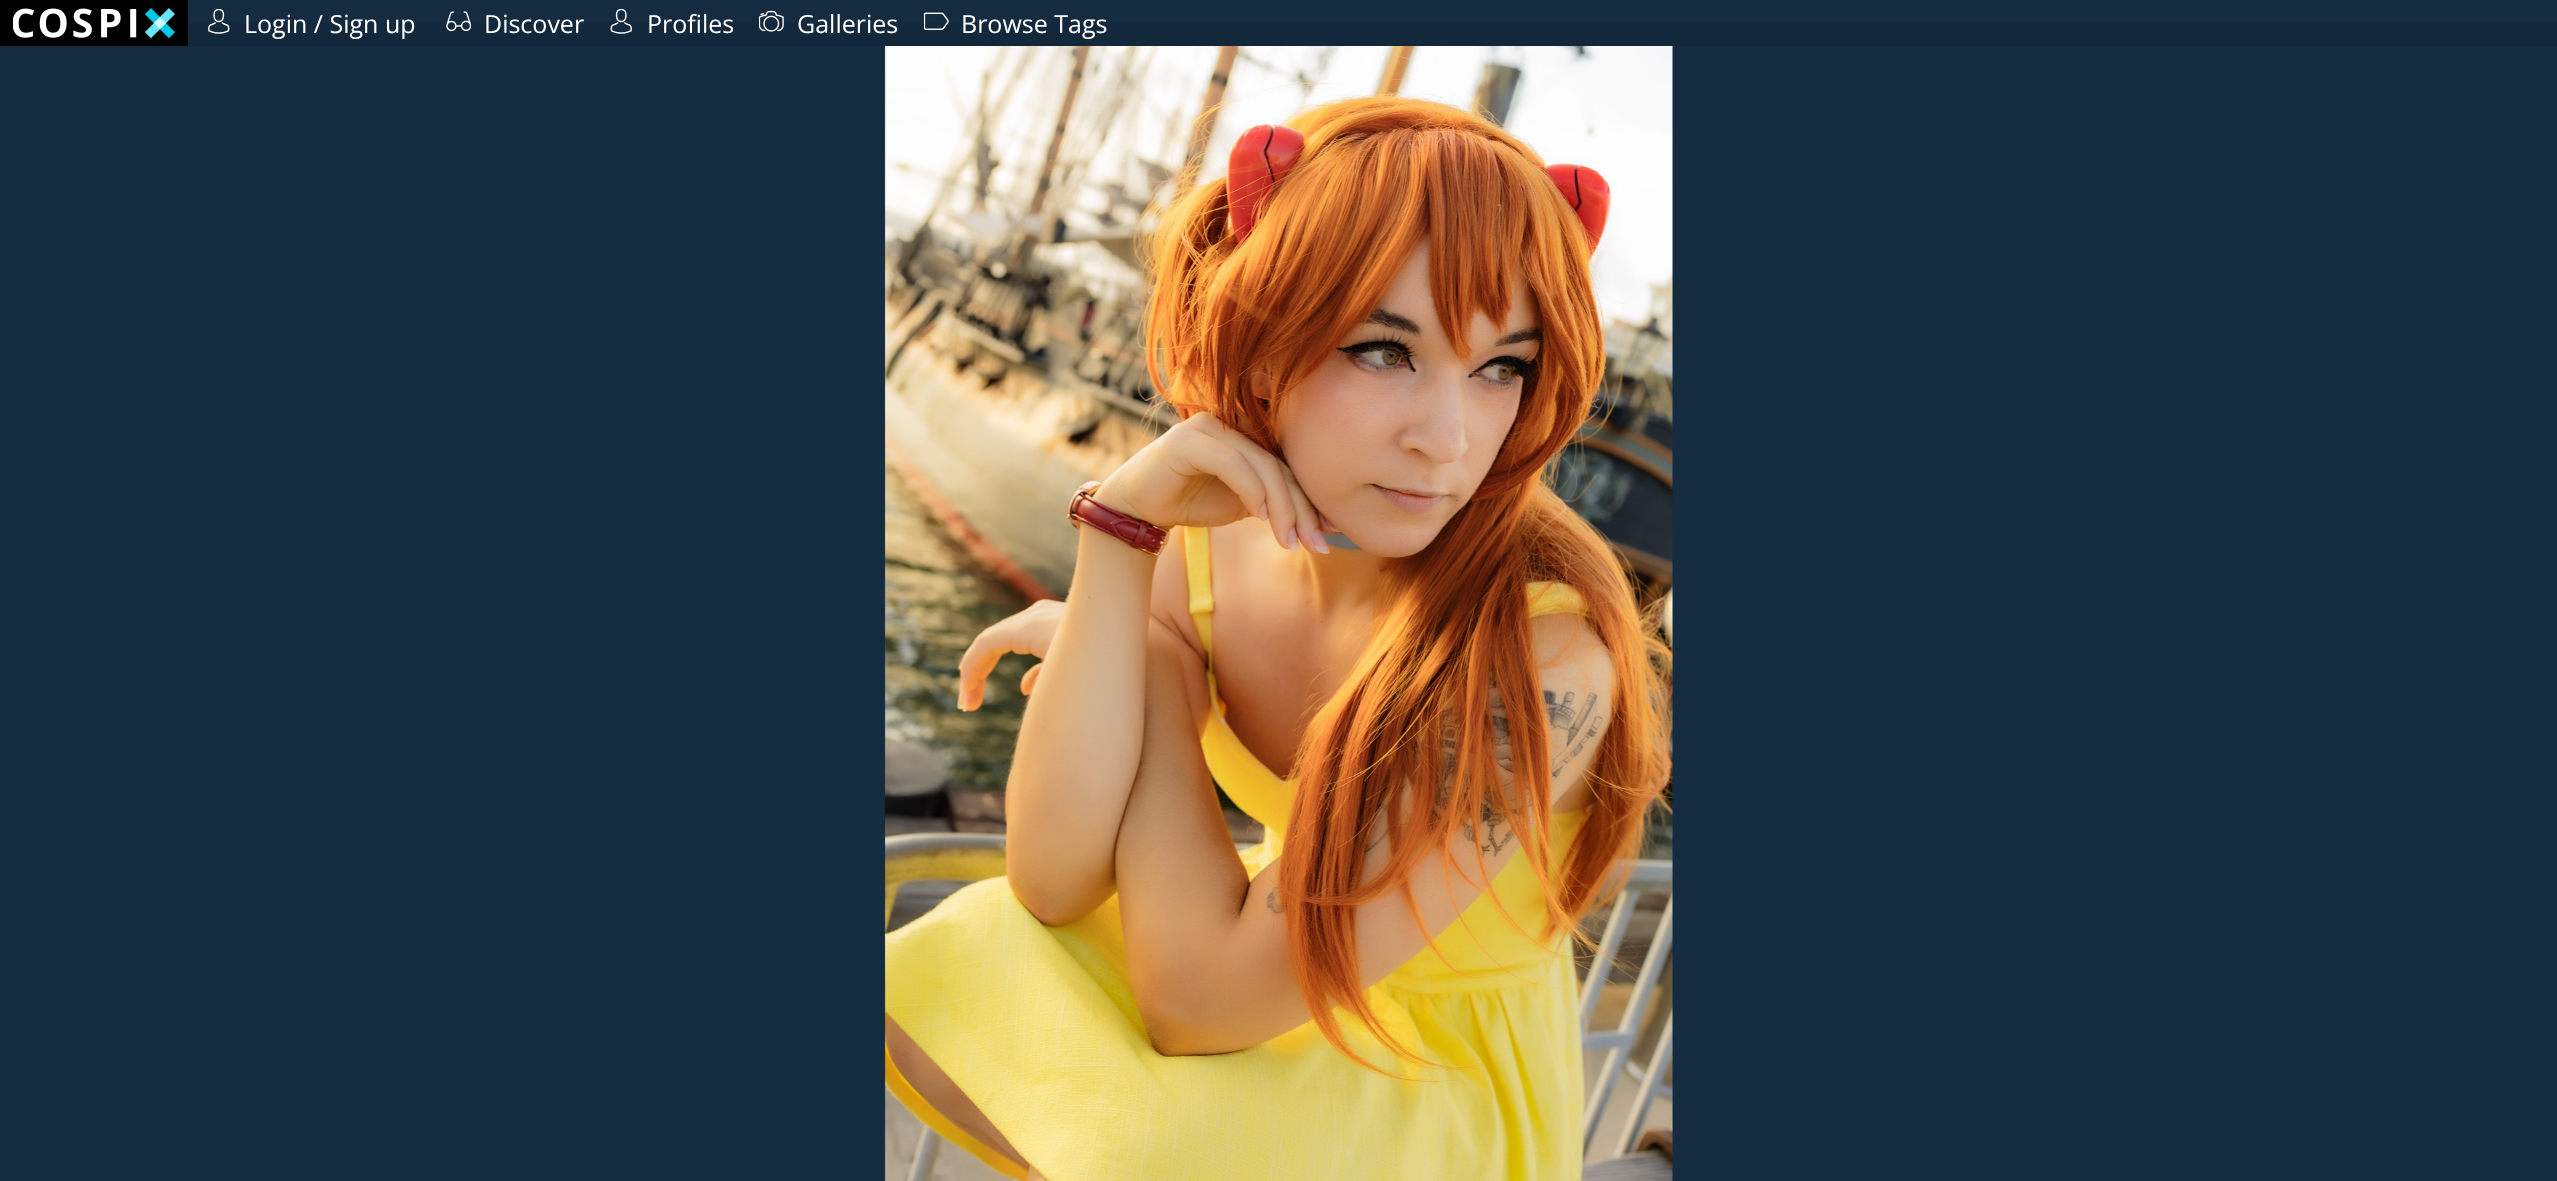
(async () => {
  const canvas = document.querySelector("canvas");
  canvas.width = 2557;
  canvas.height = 1181;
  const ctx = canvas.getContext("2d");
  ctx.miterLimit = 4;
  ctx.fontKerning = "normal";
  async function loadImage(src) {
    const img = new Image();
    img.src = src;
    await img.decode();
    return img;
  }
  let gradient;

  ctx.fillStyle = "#152b3f";
  ctx.fillRect(0, 0, 2557, 1181);
  gradient = ctx.createLinearGradient(1279, 46, 1279, 0);
  gradient.addColorStop(0, "#13273a");
  gradient.addColorStop(1, "#152b3f");
  ctx.fillStyle = gradient;
  ctx.fillRect(188, 23, 2369, 23);
  ctx.fillStyle = "#000000";
  ctx.fillRect(0, 0, 188, 46);
  ctx.drawImage(await loadImage("img/1.png"), 13, 8, 162, 31);
  ctx.drawImage(await loadImage("img/2.png"), 208, 9, 22, 25);
  ctx.drawImage(await loadImage("img/3.png"), 446, 11, 25, 21);
  ctx.drawImage(await loadImage("img/4.png"), 610, 9, 22, 25);
  ctx.drawImage(await loadImage("img/5.png"), 759, 10, 25, 22);
  ctx.drawImage(await loadImage("img/6.png"), 924, 12, 25, 18);
  ctx.drawImage(await loadImage("img/7.png"), 884, 46, 789, 1135);
  ctx.font = "25px Open Sans";
  ctx.fillStyle = "#ffffff";
  for (const [text, x, y] of [
    ["Login / Sign up", 244, 33],
    ["Discover", 484, 33],
    ["Profiles", 647, 33],
    ["Galleries", 797, 33],
    ["Browse Tags", 961, 33],
  ]) {
    ctx.fillText(text, x, y);
  }
})();
